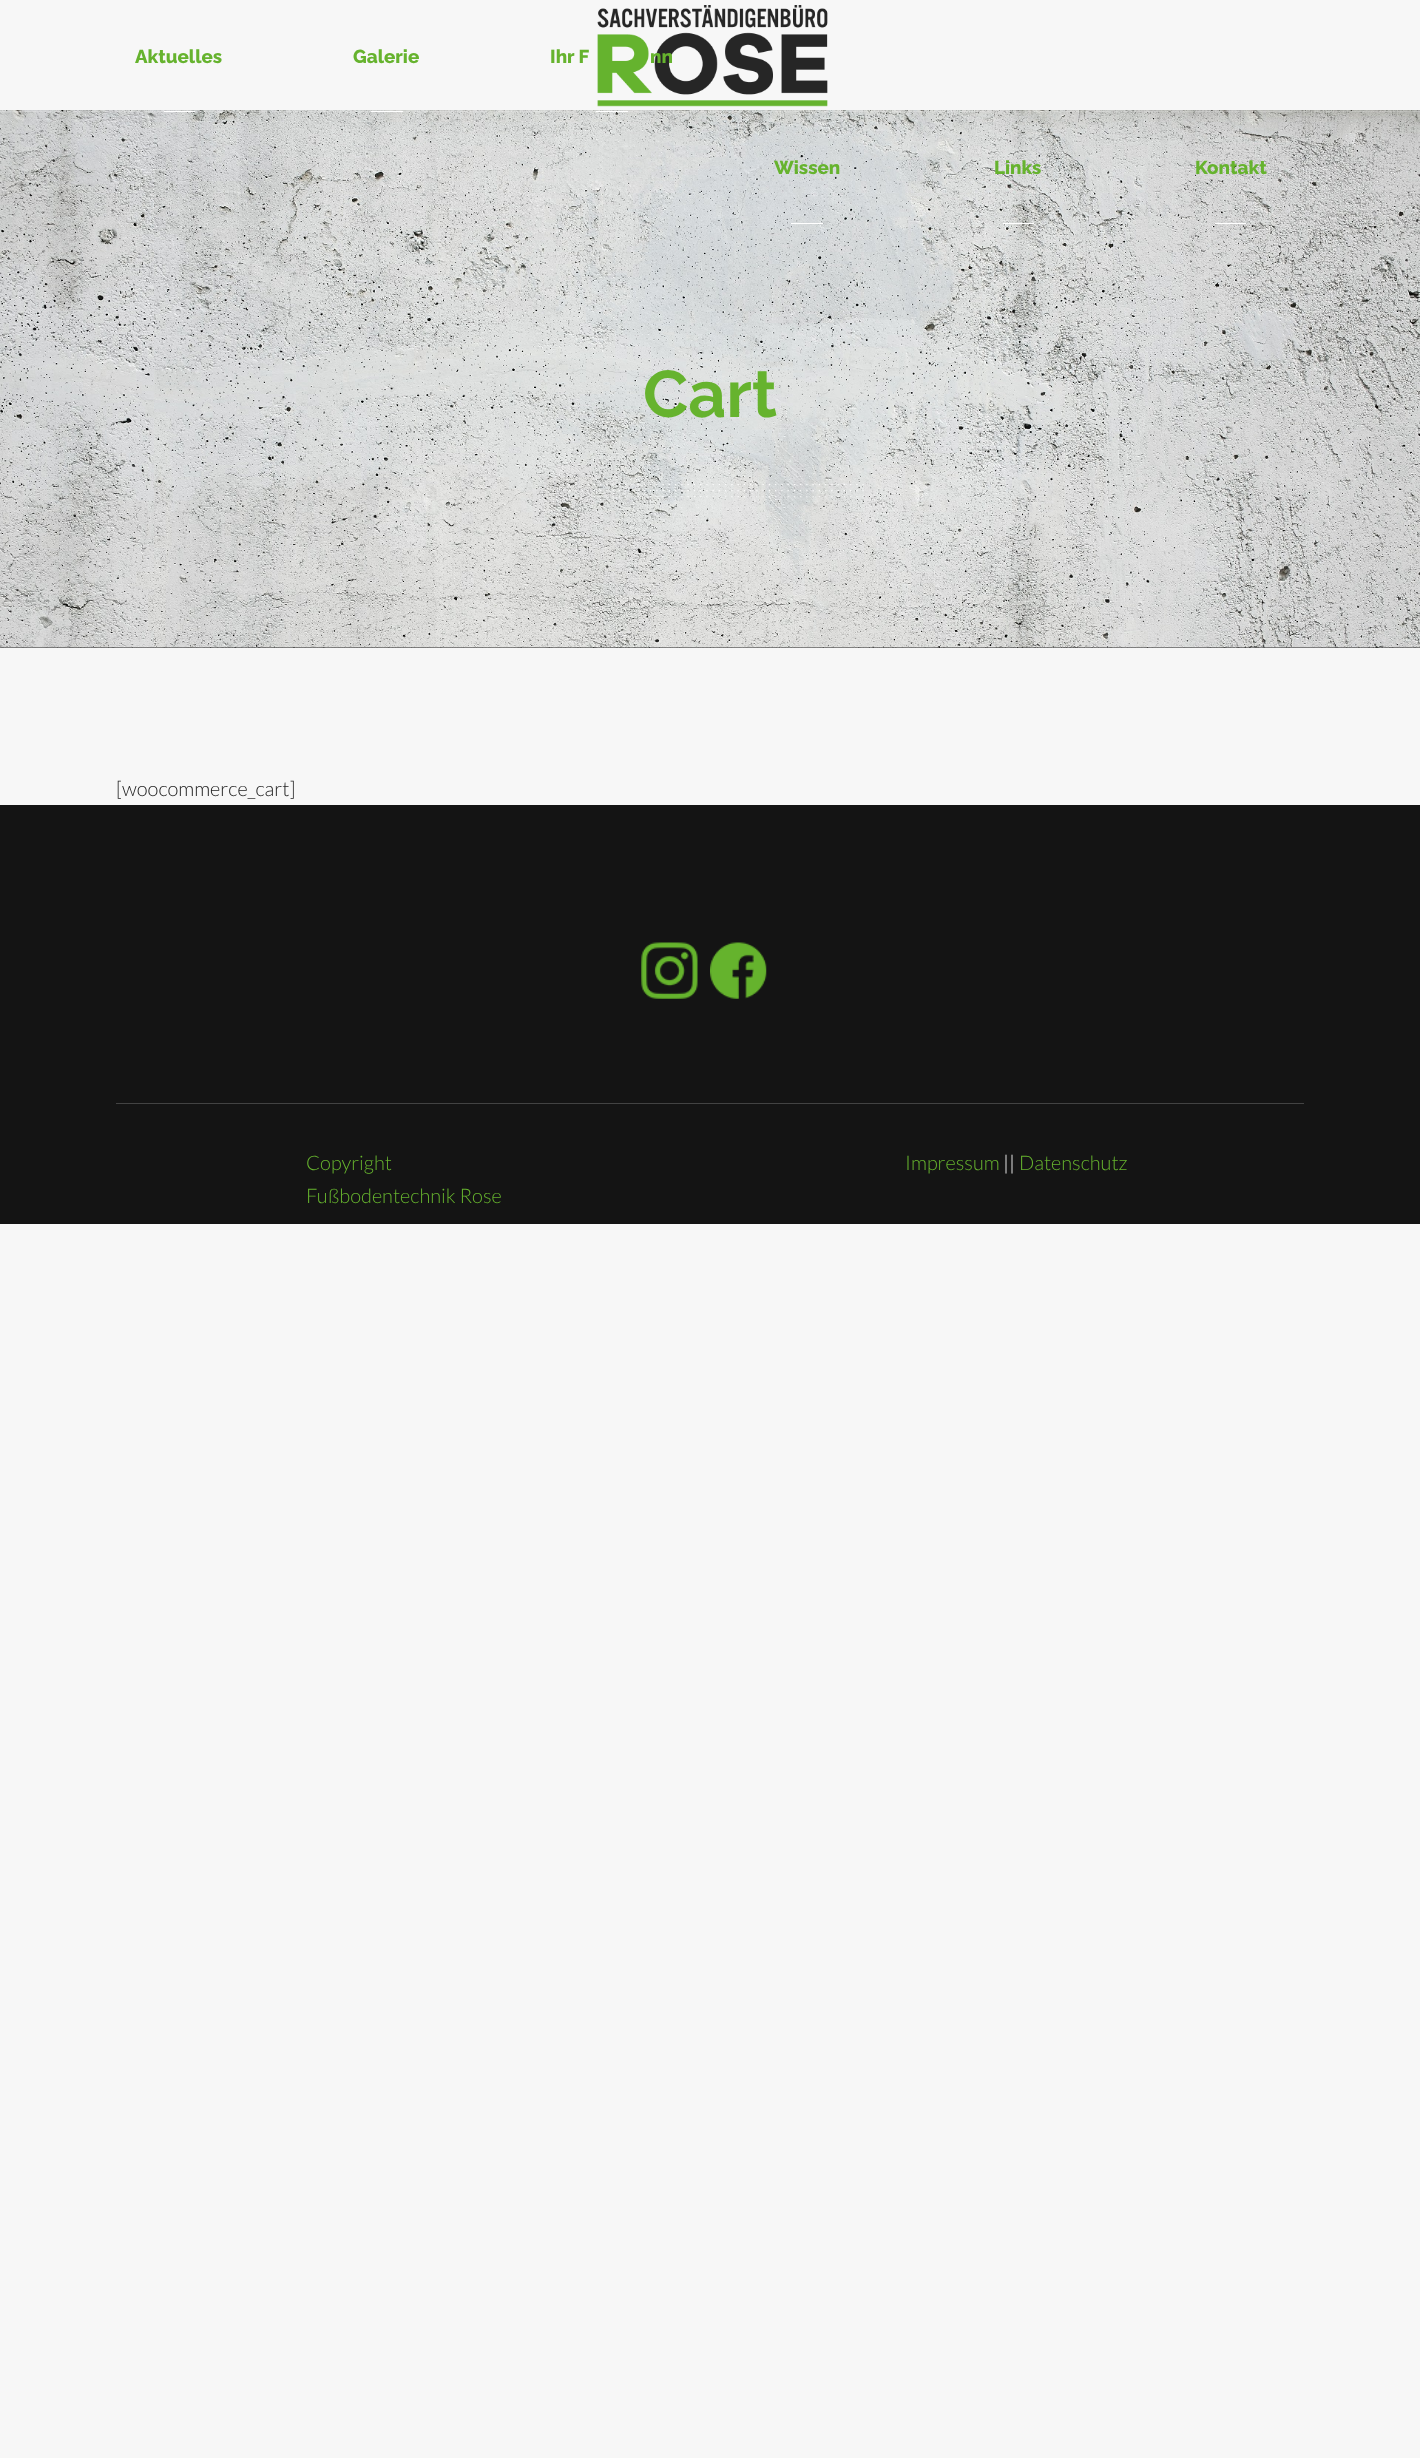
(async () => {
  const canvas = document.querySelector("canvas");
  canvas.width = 1420;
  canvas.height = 2458;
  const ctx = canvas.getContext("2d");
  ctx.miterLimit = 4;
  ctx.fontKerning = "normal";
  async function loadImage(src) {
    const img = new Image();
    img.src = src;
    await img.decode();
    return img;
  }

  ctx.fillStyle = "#f7f7f7";
  ctx.fillRect(0, 0, 1420, 2458);
  ctx.fillStyle = "#222222";
  ctx.fillRect(0, 647, 1420, 1);
  ctx.drawImage(await loadImage("img/2.png"), 0, 110, 1420, 538);
  for (const [x, y, w, h, color] of [
    [0, 111, 1420, 1, "rgba(255, 255, 255, 0.2)"],
    [164, 111, 31, 1, "#ffffff"],
    [371, 111, 32, 1, "#ffffff"],
    [596, 111, 32, 1, "#ffffff"],
  ]) {
    ctx.fillStyle = color;
    ctx.fillRect(x, y, w, h);
  }
  ctx.drawImage(await loadImage("img/1.png"), 597, 5, 231, 102);
  for (const [x, y, w, h, color] of [
    [791, 223, 32, 1, "#ffffff"],
    [1003, 223, 31, 1, "#ffffff"],
    [1215, 223, 31, 1, "#ffffff"],
  ]) {
    ctx.fillStyle = color;
    ctx.fillRect(x, y, w, h);
  }
  ctx.drawImage(await loadImage("img/3.png"), 556, 483, 308, 15);
  ctx.fillStyle = "#141414";
  ctx.fillRect(0, 805, 1420, 419);
  ctx.drawImage(await loadImage("img/4.png"), 641, 942, 57, 57);
  ctx.drawImage(await loadImage("img/5.png"), 710, 942, 57, 57);
  ctx.fillStyle = "#434343";
  ctx.fillRect(116, 1103, 1188, 1);
  ctx.font = "800 18.75px Raleway";
  ctx.fillStyle = "#66b32e";
  for (const [text, x, y] of [
    ["Aktuelles", 135, 63],
    ["Galerie", 353, 63],
    ["Ihr F", 550, 63],
    ["nn", 650, 63],
    ["Wissen", 774, 174],
    ["Links", 994, 174],
    ["Kontakt", 1195, 174],
  ]) {
    ctx.fillText(text, x, y);
  }
  ctx.font = "bold 66px Raleway";
  ctx.fillText("Cart", 643, 417);
  ctx.font = "300 20px Lato";
  ctx.fillStyle = "#222222";
  ctx.fillText("[woocommerce_cart]", 116, 796);
  ctx.fillStyle = "#66b32e";
  for (const [text, x, y] of [
    ["Copyright", 306, 1170],
    ["Fußbodentechnik Rose", 306, 1203],
    ["Impressum", 905, 1170],
  ]) {
    ctx.fillText(text, x, y);
  }
  ctx.fillStyle = "#ffffff";
  ctx.fillText("||", 1003, 1170);
  ctx.fillStyle = "#66b32e";
  ctx.fillText("Datenschutz", 1019, 1170);
})();
